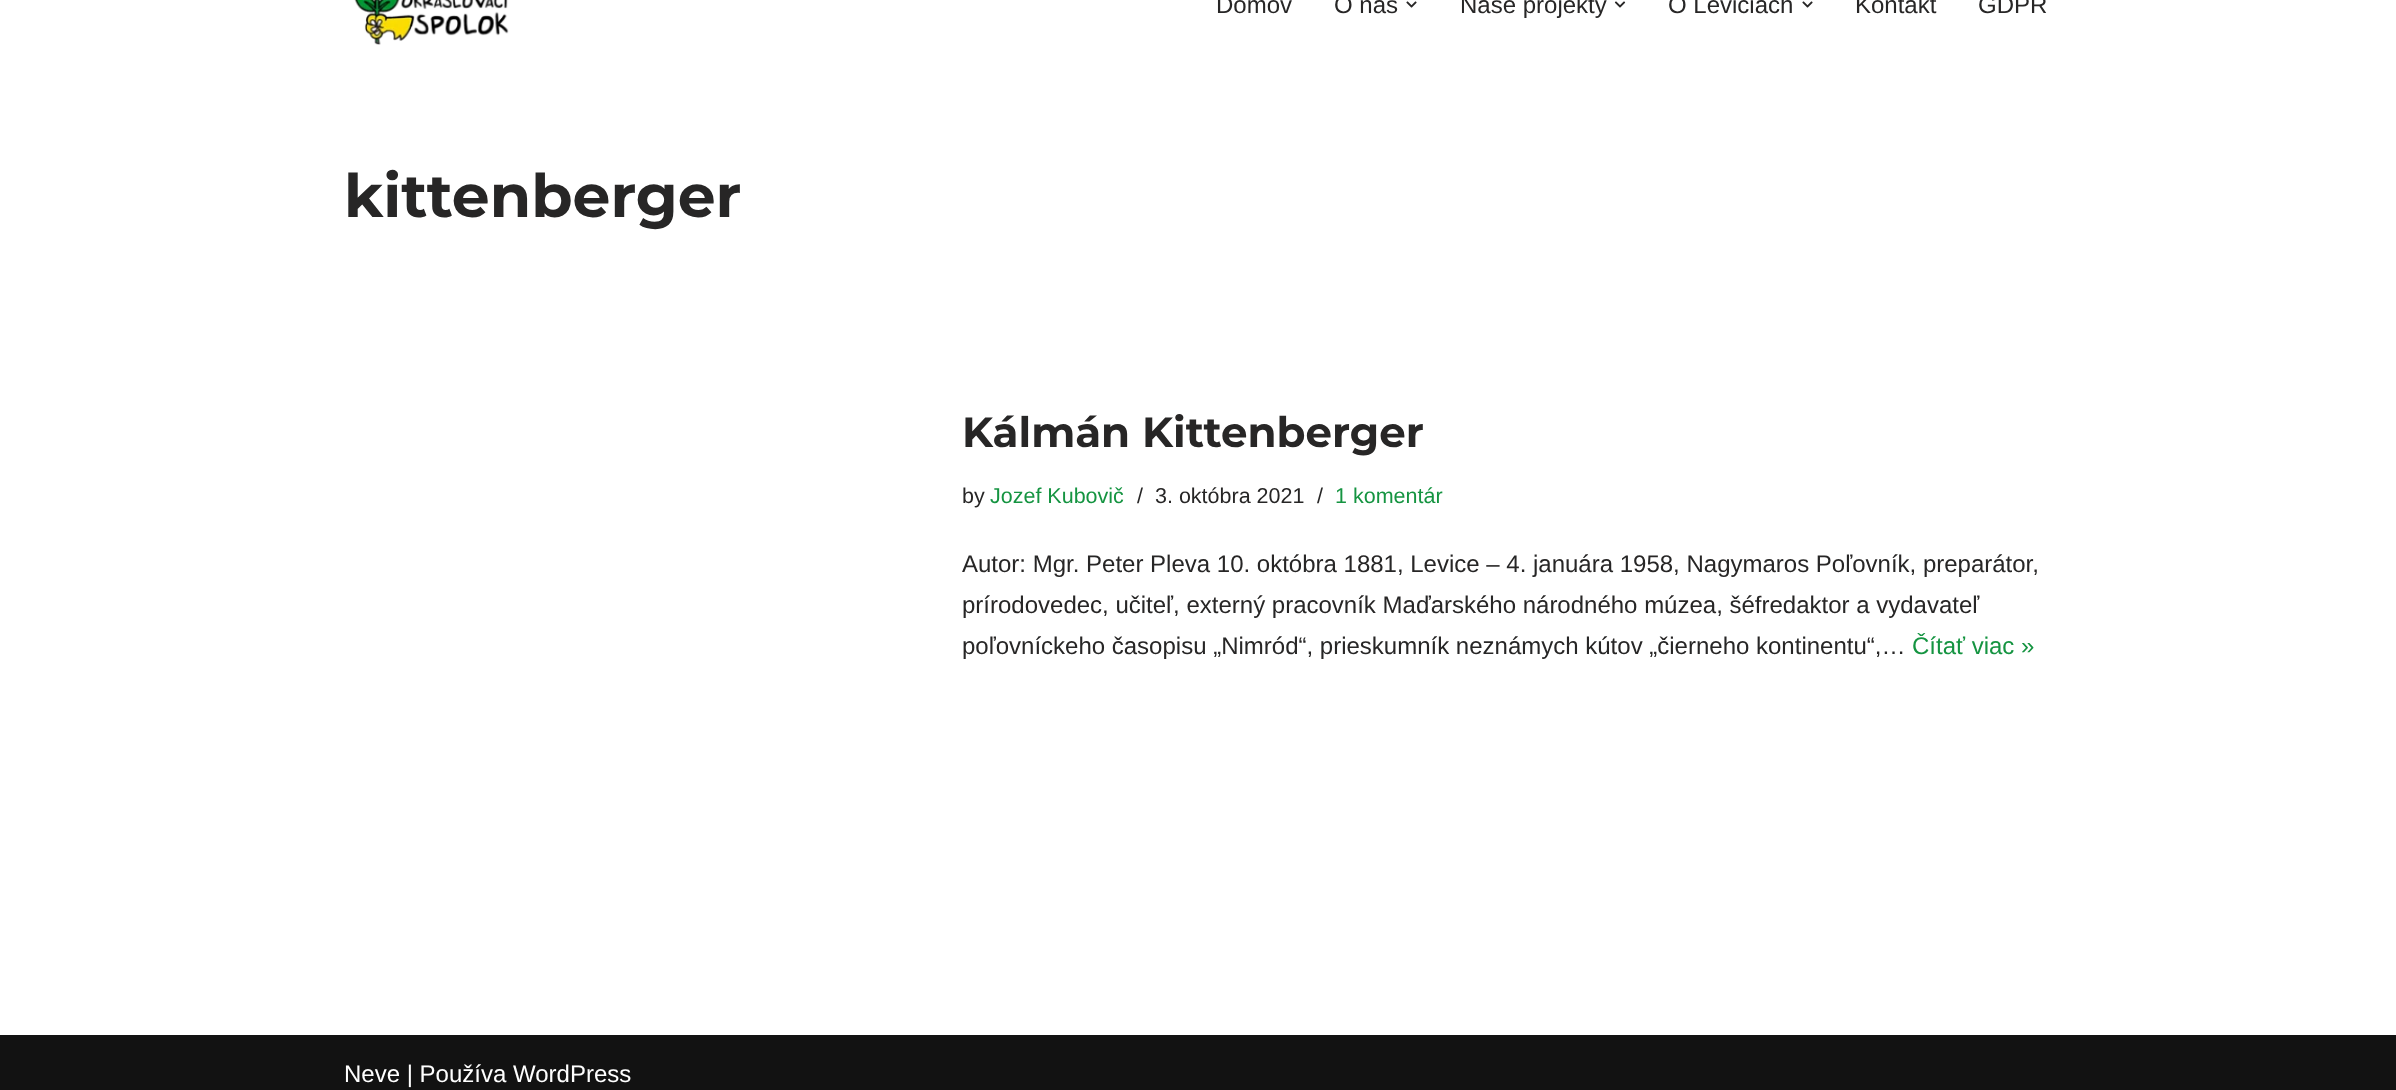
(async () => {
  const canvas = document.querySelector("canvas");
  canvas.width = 2396;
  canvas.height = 1090;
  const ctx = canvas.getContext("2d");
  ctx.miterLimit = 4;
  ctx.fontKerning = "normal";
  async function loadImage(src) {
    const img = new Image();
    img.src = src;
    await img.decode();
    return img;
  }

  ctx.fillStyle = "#ffffff";
  ctx.fillRect(0, 0, 2396, 1090);
  ctx.drawImage(await loadImage("img/1.png"), 354, 0, 155, 45);
  ctx.drawImage(await loadImage("img/2.png"), 1406, 1, 11, 7);
  ctx.drawImage(await loadImage("img/3.png"), 1614, 1, 12, 7);
  ctx.drawImage(await loadImage("img/2.png"), 1802, 1, 11, 7);
  ctx.fillStyle = "#121212";
  ctx.fillRect(0, 1035, 2396, 55);
  ctx.font = "24px Liberation Sans";
  ctx.fillStyle = "#272626";
  for (const [text, x, y] of [
    ["Domov", 1216, 13],
    ["O nás", 1334, 13],
    ["Naše projekty", 1460, 13],
    ["O Leviciach", 1668, 13],
    ["Kontakt", 1855, 13],
    ["GDPR", 1978, 13],
  ]) {
    ctx.fillText(text, x, y);
  }
  ctx.font = "bold 60px Montserrat";
  ctx.fillText("kittenberger", 344, 217);
  ctx.font = "bold 42px Montserrat";
  ctx.fillText("Kálmán Kittenberger", 962, 447);
  ctx.font = "21.5px Liberation Sans";
  ctx.fillText("by", 962, 503);
  ctx.fillStyle = "#159441";
  ctx.fillText("Jozef Kubovič", 990, 503);
  ctx.fillStyle = "#272626";
  for (const [text, x, y] of [
    ["/", 1137, 503],
    ["3. októbra 2021", 1155, 503],
    ["/", 1317, 503],
  ]) {
    ctx.fillText(text, x, y);
  }
  ctx.fillStyle = "#159441";
  ctx.fillText("1 komentár", 1335, 503);
  ctx.font = "24px Liberation Sans";
  ctx.fillStyle = "#272626";
  for (const [text, x, y] of [
    ["Autor: Mgr. Peter Pleva 10. októbra 1881, Levice – 4. januára 1958, Nagymaros Poľovník, preparátor,", 962, 572],
    ["prírodovedec, učiteľ, externý pracovník Maďarského národného múzea, šéfredaktor a vydavateľ", 962, 613],
    ["poľovníckeho časopisu „Nimród“, prieskumník neznámych kútov „čierneho kontinentu“,…", 962, 654],
  ]) {
    ctx.fillText(text, x, y);
  }
  ctx.fillStyle = "#159441";
  ctx.fillText("Čítať viac »", 1912, 654);
  ctx.fillStyle = "#ffffff";
  ctx.fillText("Neve | Používa WordPress", 344, 1082);
})();
